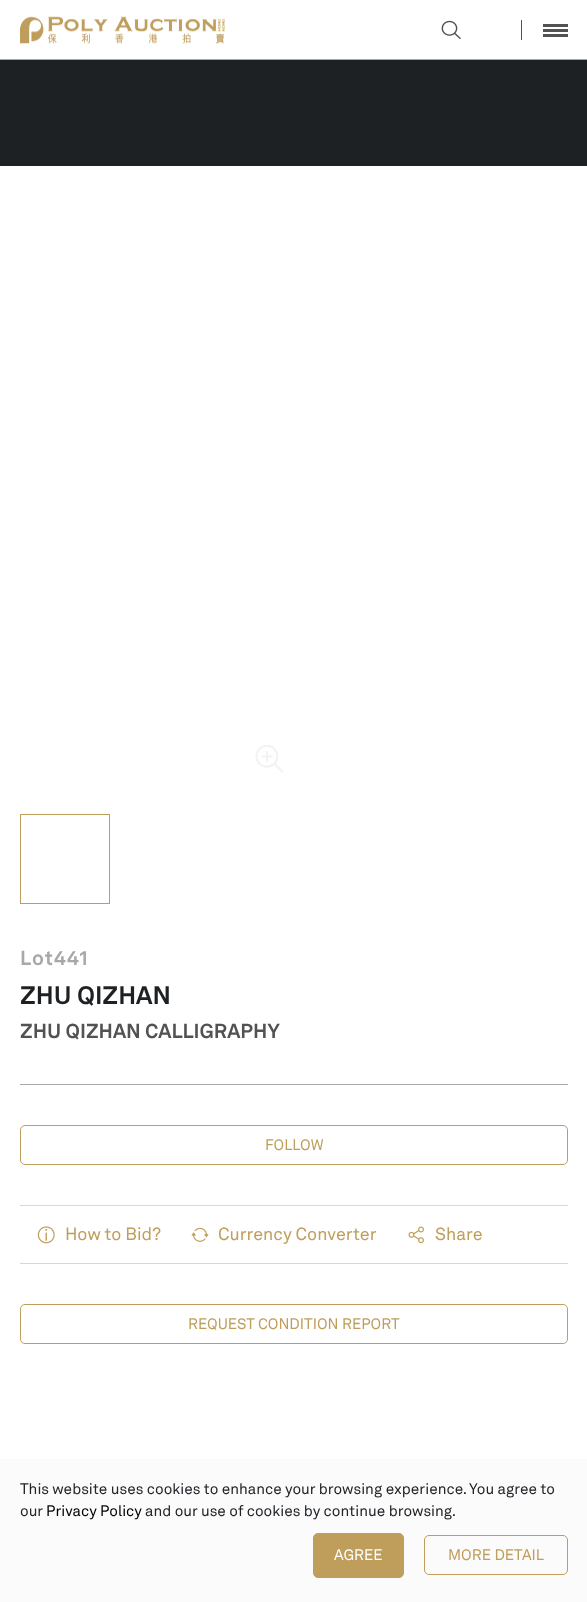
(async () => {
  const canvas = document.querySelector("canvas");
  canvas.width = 587;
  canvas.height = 1602;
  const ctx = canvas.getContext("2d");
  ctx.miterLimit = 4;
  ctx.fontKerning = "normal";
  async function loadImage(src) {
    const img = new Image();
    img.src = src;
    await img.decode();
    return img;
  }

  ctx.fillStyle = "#ffffff";
  ctx.fillRect(0, 0, 587, 1602);
  ctx.fillStyle = "#a8a8a8";
  ctx.fillRect(0, 59, 587, 1);
  ctx.drawImage(await loadImage("img/1.png"), 20, 16, 205, 28);
  ctx.drawImage(await loadImage("img/2.png"), 441, 20, 20, 20);
  for (const [x, y, w, h, color] of [
    [521, 20, 1, 20, "#525252"],
    [543, 24, 25, 3, "#525252"],
    [543, 29, 25, 3, "#525252"],
    [543, 34, 25, 3, "#525252"],
    [0, 60, 587, 106, "#1e2123"],
  ]) {
    ctx.fillStyle = color;
    ctx.fillRect(x, y, w, h);
  }
  ctx.drawImage(await loadImage("img/3.png"), 255, 745, 29, 28);
  ctx.strokeStyle = "#bf9d5a";
  ctx.strokeRect(20.5, 814.5, 89, 89);
  ctx.fillStyle = "#a8a8a8";
  ctx.fillRect(20, 1084, 548, 1);
  ctx.beginPath();
  ctx.roundRect(20.5, 1125.5, 547, 39, 4.5);
  ctx.stroke();
  ctx.fillStyle = "#dcd7cf";
  ctx.fillRect(20, 1205, 548, 1);
  ctx.fillRect(20, 1263, 548, 1);
  ctx.drawImage(await loadImage("img/4.png"), 37, 1226, 18, 18);
  ctx.drawImage(await loadImage("img/5.png"), 191, 1227, 18, 15);
  ctx.drawImage(await loadImage("img/6.png"), 408, 1226, 16, 18);
  ctx.beginPath();
  ctx.roundRect(20.5, 1304.5, 547, 39, 4.5);
  ctx.stroke();
  ctx.fillStyle = "#fbfbfb";
  ctx.fillRect(0, 1459, 587, 143);
  ctx.fillStyle = "#bf9d5a";
  ctx.beginPath();
  ctx.roundRect(313.5, 1533.5, 90, 44, 4.5);
  ctx.fill();
  ctx.stroke();
  ctx.beginPath();
  ctx.roundRect(424.5, 1535.5, 143, 39, 4.5);
  ctx.stroke();
  ctx.letterSpacing = "1px";
  ctx.font = "bold 20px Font";
  ctx.fillStyle = "#a8a8a8";
  ctx.fillText("Lot441", 20, 965);
  ctx.letterSpacing = "0px";
  ctx.font = "bold 25px Font";
  ctx.fillStyle = "#1e2123";
  ctx.fillText("ZHU QIZHAN", 20, 1004);
  ctx.font = "bold 20px Font";
  ctx.fillStyle = "#525252";
  ctx.fillText("ZHU QIZHAN CALLIGRAPHY", 20, 1038);
  ctx.font = "15px Font";
  ctx.fillStyle = "#bf9d5a";
  ctx.fillText("FOLLOW", 265, 1150);
  ctx.font = "17.5px Font";
  for (const [text, x, y] of [
    ["How to Bid?", 65, 1240],
    ["Currency Converter", 218, 1240],
    ["Share", 435, 1240],
  ]) {
    ctx.fillText(text, x, y);
  }
  ctx.font = "15px Font";
  ctx.fillText("REQUEST CONDITION REPORT", 188, 1329);
  ctx.fillStyle = "#212529";
  ctx.fillText("This website uses cookies to enhance your browsing experience. You agree to", 20, 1494);
  ctx.fillText("our", 20, 1516);
  ctx.fillStyle = "#000000";
  ctx.fillText("Privacy Policy", 46, 1516);
  ctx.fillStyle = "#212529";
  ctx.fillText("and our use of cookies by continue browsing.", 145, 1516);
  ctx.fillStyle = "#ffffff";
  ctx.fillText("AGREE", 334, 1560);
  ctx.fillStyle = "#bf9d5a";
  ctx.fillText("MORE DETAIL", 448, 1560);
})();
